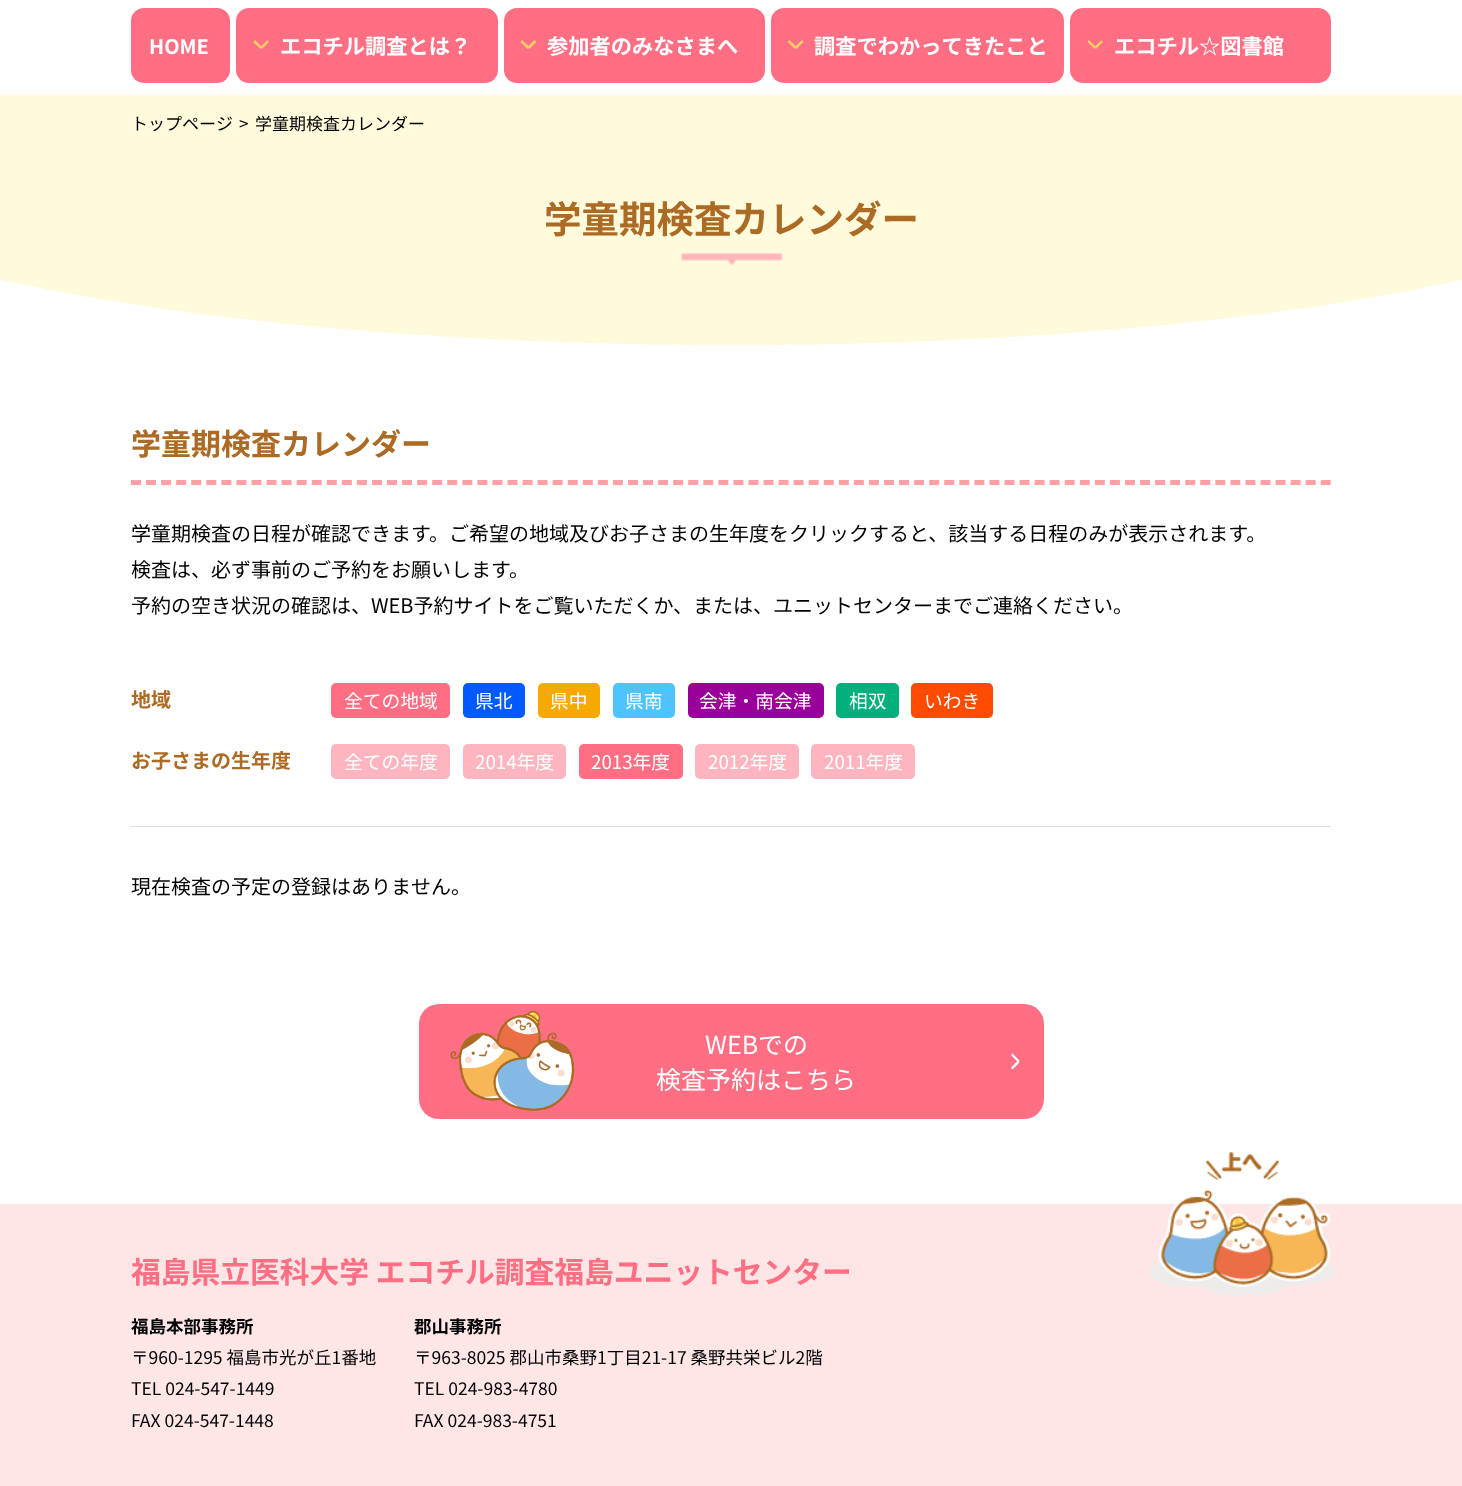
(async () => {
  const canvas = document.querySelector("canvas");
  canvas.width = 1462;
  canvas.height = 1486;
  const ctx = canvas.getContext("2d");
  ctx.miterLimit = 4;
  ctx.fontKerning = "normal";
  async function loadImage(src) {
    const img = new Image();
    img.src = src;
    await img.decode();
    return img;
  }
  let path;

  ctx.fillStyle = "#ffffff";
  ctx.fillRect(0, 0, 1462, 1486);
  ctx.fillStyle = "#ff6e82";
  ctx.beginPath();
  ctx.roundRect(131, 8, 99, 75, 13);
  ctx.fill();
  ctx.beginPath();
  ctx.roundRect(236, 8, 262, 75, 13);
  ctx.fill();
  ctx.fillStyle = "#ffcc66";
  path = new Path2D("M260.5 47L267.5 40L269 42L262 49Z");
  ctx.fill(path);
  path = new Path2D("M260.5 49L253 42L255 40L262 47Z");
  ctx.fill(path);
  ctx.fillStyle = "#ff6e82";
  ctx.beginPath();
  ctx.roundRect(504, 8, 261, 75, 13);
  ctx.fill();
  ctx.fillStyle = "#ffcc66";
  path = new Path2D("M527.5 47L534.5 40L536.5 42L529.5 49Z");
  ctx.fill(path);
  path = new Path2D("M527.5 49L520.5 42L522 40L529.5 47Z");
  ctx.fill(path);
  ctx.fillStyle = "#ff6e82";
  ctx.beginPath();
  ctx.roundRect(771, 8, 293, 75, 13);
  ctx.fill();
  ctx.fillStyle = "#ffcc66";
  path = new Path2D("M795 47L802 40L803.5 42L796.5 49Z");
  ctx.fill(path);
  path = new Path2D("M795 49L787.5 42L789.5 40L796.5 47Z");
  ctx.fill(path);
  ctx.fillStyle = "#ff6e82";
  ctx.beginPath();
  ctx.roundRect(1070, 8, 261, 75, 13);
  ctx.fill();
  ctx.fillStyle = "#ffcc66";
  path = new Path2D("M1094.5 47L1101.5 40L1103 42L1096 49Z");
  ctx.fill(path);
  path = new Path2D("M1094.5 49L1087.5 42L1089 40L1096 47Z");
  ctx.fill(path);
  ctx.fillStyle = "#fffadc";
  path = new Path2D("M-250 95H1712V149C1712 257 1273 345 731 345C189 345-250 257-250 149Z");
  ctx.fill(path);
  ctx.drawImage(await loadImage("img/1.png"), 681, 253, 102, 13);
  path = new Path2D("M131 482.5H1331");
  ctx.strokeStyle = "#ffa0a6";
  ctx.lineWidth = 5;
  ctx.setLineDash([10, 5.06]);
  ctx.stroke(path);
  ctx.fillStyle = "#ff6e82";
  ctx.beginPath();
  ctx.roundRect(331, 683, 119, 35, 5);
  ctx.fill();
  ctx.fillStyle = "#005aff";
  ctx.beginPath();
  ctx.roundRect(463, 683, 62, 35, 5);
  ctx.fill();
  ctx.fillStyle = "#f6aa00";
  ctx.beginPath();
  ctx.roundRect(538, 683, 62, 35, 5);
  ctx.fill();
  ctx.fillStyle = "#4dc4ff";
  ctx.beginPath();
  ctx.roundRect(613, 683, 62, 35, 5);
  ctx.fill();
  ctx.fillStyle = "#990099";
  ctx.beginPath();
  ctx.roundRect(688, 683, 136, 35, 5);
  ctx.fill();
  ctx.fillStyle = "#03af7a";
  ctx.beginPath();
  ctx.roundRect(836, 683, 63, 35, 5);
  ctx.fill();
  ctx.fillStyle = "#ff4b00";
  ctx.beginPath();
  ctx.roundRect(911, 683, 82, 35, 5);
  ctx.fill();
  ctx.fillStyle = "#ffb5c0";
  ctx.beginPath();
  ctx.roundRect(331, 744, 119, 35, 5);
  ctx.fill();
  ctx.beginPath();
  ctx.roundRect(463, 744, 103, 35, 5);
  ctx.fill();
  ctx.fillStyle = "#ff6e82";
  ctx.beginPath();
  ctx.roundRect(579, 744, 104, 35, 5);
  ctx.fill();
  ctx.fillStyle = "#ffb5c0";
  ctx.beginPath();
  ctx.roundRect(695, 744, 104, 35, 5);
  ctx.fill();
  ctx.beginPath();
  ctx.roundRect(811, 744, 104, 35, 5);
  ctx.fill();
  ctx.fillStyle = "#dddddd";
  ctx.fillRect(131, 826, 1200, 1);
  ctx.fillStyle = "#ff6e82";
  ctx.beginPath();
  ctx.roundRect(419, 1004, 625, 115, 20);
  ctx.fill();
  ctx.drawImage(await loadImage("img/2.png"), 450, 1010, 125, 101);
  ctx.fillStyle = "#ffffff";
  path = new Path2D("M1011 1067.5L1018 1060.5L1019.5 1062.5L1012.5 1069.5Z");
  ctx.fill(path);
  path = new Path2D("M1012.5 1053.5L1019.5 1060.5L1018 1062.5L1011 1055Z");
  ctx.fill(path);
  ctx.fillStyle = "#ffe6e6";
  ctx.fillRect(0, 1204, 1462, 282);
  ctx.drawImage(await loadImage("img/3.png"), 1148, 1151, 189, 145);
  ctx.font = "bold 20px Noto Sans JP";
  ctx.fillStyle = "#ffffff";
  ctx.fillText("HOME", 149, 54);
  ctx.font = "bold 21.25px Noto Sans JP";
  for (const [text, x, y] of [
    ["エコチル調査とは？", 280, 54],
    ["参加者のみなさまへ", 547, 54],
    ["調査でわかってきたこと", 814, 54],
    ["エコチル☆図書館", 1114, 54],
  ]) {
    ctx.fillText(text, x, y);
  }
  ctx.font = "17px Noto Sans JP";
  ctx.fillStyle = "#000000";
  for (const [text, x, y] of [
    ["トップページ", 131, 130],
    [">", 239, 130],
    ["学童期検査カレンダー", 255, 130],
  ]) {
    ctx.fillText(text, x, y);
  }
  ctx.font = "bold 37.5px Noto Sans JP";
  ctx.fillStyle = "#ac6b24";
  ctx.fillText("学童期検査カレンダー", 544, 233);
  ctx.font = "bold 30px Noto Sans JP";
  ctx.fillText("学童期検査カレンダー", 131, 455);
  ctx.font = "20px Noto Sans JP";
  ctx.fillStyle = "#000000";
  for (const [text, x, y] of [
    ["学童期検査の日程が確認できます。ご希望の地域及びお子さまの生年度をクリックすると、該当する日程のみが表示されます。", 131, 541],
    ["検査は、必ず事前のご予約をお願いします。", 131, 577],
    ["予約の空き状況の確認は、WEB予約サイトをご覧いただくか、または、ユニットセンターまでご連絡ください。", 131, 613],
  ]) {
    ctx.fillText(text, x, y);
  }
  ctx.font = "bold 20px Noto Sans JP";
  ctx.fillStyle = "#ac6b24";
  ctx.fillText("地域", 131, 707);
  ctx.font = "18.75px Noto Sans JP";
  ctx.fillStyle = "#ffffff";
  for (const [text, x, y] of [
    ["全ての地域", 344, 708],
    ["県北", 475, 708],
    ["県中", 550, 708],
    ["県南", 625, 708],
    ["会津・南会津", 699, 708],
    ["相双", 849, 708],
    ["いわき", 924, 708],
  ]) {
    ctx.fillText(text, x, y);
  }
  ctx.font = "bold 20px Noto Sans JP";
  ctx.fillStyle = "#ac6b24";
  ctx.fillText("お子さまの生年度", 131, 768);
  ctx.font = "18.75px Noto Sans JP";
  ctx.fillStyle = "#ffffff";
  for (const [text, x, y] of [
    ["全ての年度", 344, 769],
    ["2014年度", 475, 769],
    ["2013年度", 591, 769],
    ["2012年度", 708, 769],
    ["2011年度", 824, 769],
  ]) {
    ctx.fillText(text, x, y);
  }
  ctx.font = "20px Noto Sans JP";
  ctx.fillStyle = "#000000";
  ctx.fillText("現在検査の予定の登録はありません。", 131, 894);
  ctx.font = "25px Noto Sans JP";
  ctx.fillStyle = "#ffffff";
  ctx.fillText("WEBでの", 705, 1054);
  ctx.fillText("検査予約はこちら", 656, 1089);
  ctx.font = "bold 29.75px Noto Sans JP";
  ctx.fillStyle = "#ff6e82";
  ctx.fillText("福島県立医科大学 エコチル調査福島ユニットセンター", 131, 1283);
  ctx.font = "bold 17.5px Noto Sans JP";
  ctx.fillStyle = "#000000";
  ctx.fillText("福島本部事務所", 131, 1333);
  ctx.font = "17.5px Noto Sans JP";
  for (const [text, x, y] of [
    ["〒960-1295 福島市光が丘1番地", 131, 1364],
    ["TEL 024-547-1449", 131, 1395],
    ["FAX 024-547-1448", 131, 1427],
  ]) {
    ctx.fillText(text, x, y);
  }
  ctx.font = "bold 17.5px Noto Sans JP";
  ctx.fillText("郡山事務所", 414, 1333);
  ctx.font = "17.5px Noto Sans JP";
  for (const [text, x, y] of [
    ["〒963-8025 郡山市桑野1丁目21-17 桑野共栄ビル2階", 414, 1364],
    ["TEL 024-983-4780", 414, 1395],
    ["FAX 024-983-4751", 414, 1427],
  ]) {
    ctx.fillText(text, x, y);
  }
})();
